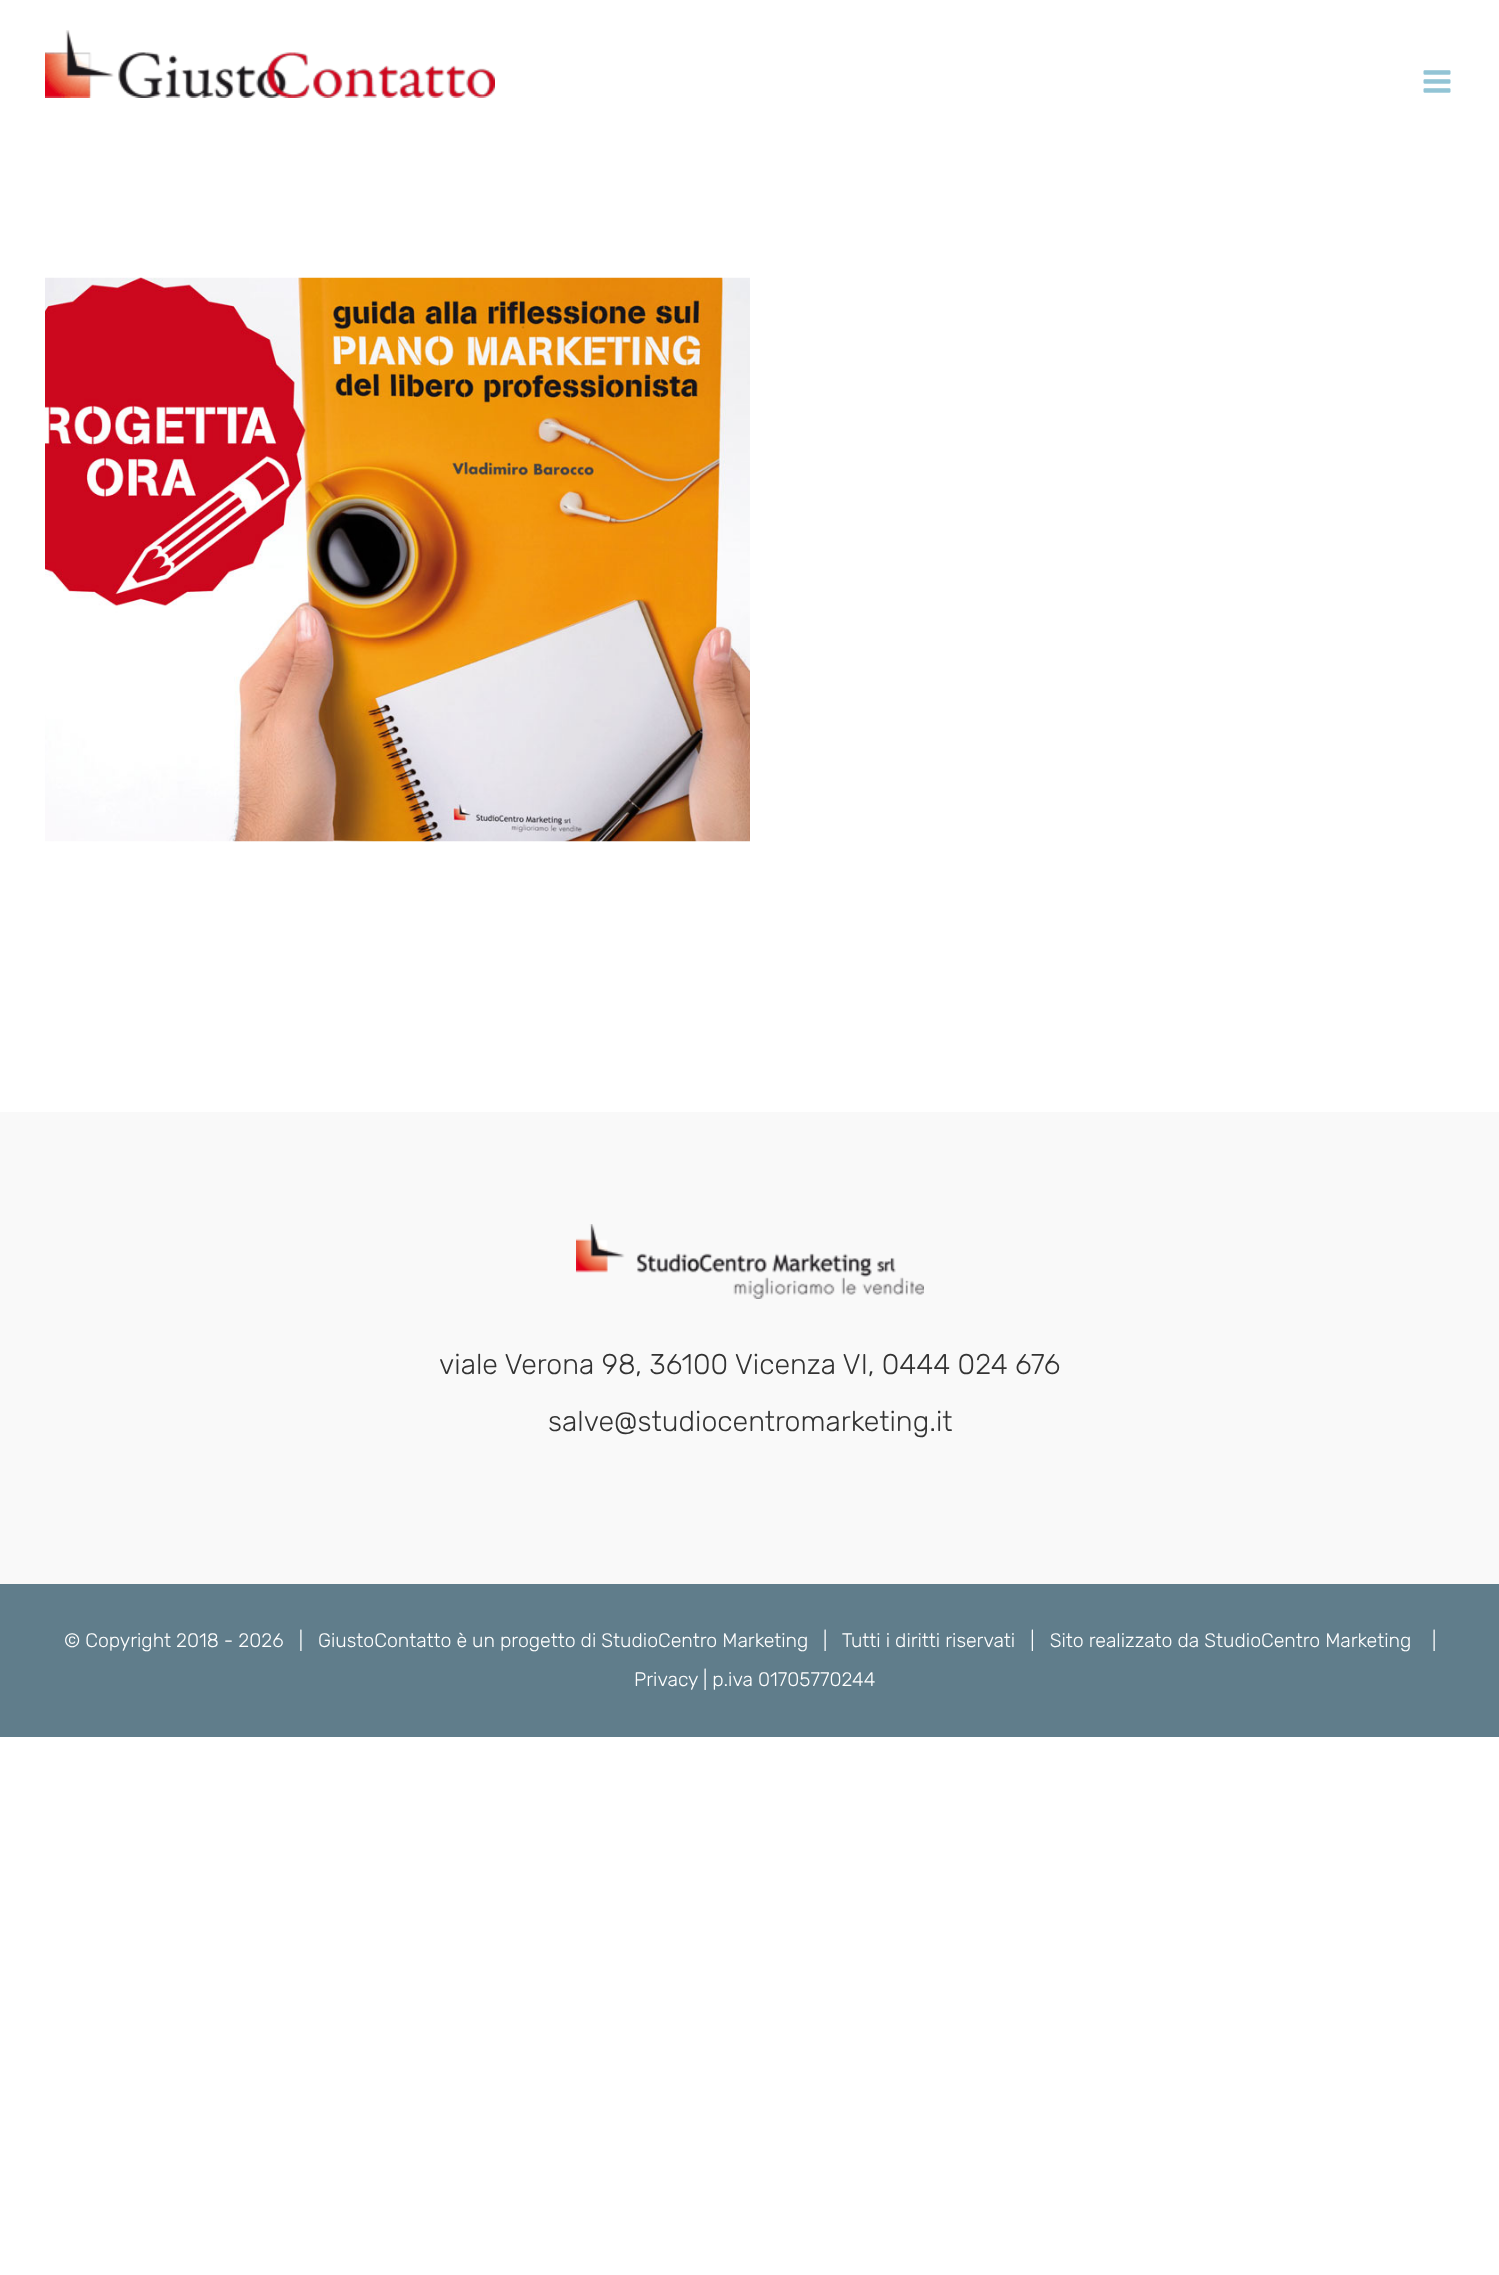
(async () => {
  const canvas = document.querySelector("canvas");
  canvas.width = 1499;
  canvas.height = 2275;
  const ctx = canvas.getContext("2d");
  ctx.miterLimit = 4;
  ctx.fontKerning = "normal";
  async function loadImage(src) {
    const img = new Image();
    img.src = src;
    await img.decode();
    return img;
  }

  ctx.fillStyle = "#ffffff";
  ctx.fillRect(0, 0, 1499, 2275);
  ctx.drawImage(await loadImage("img/1.png"), 45, 30, 450, 68);
  ctx.drawImage(await loadImage("img/2.png"), 1423, 70, 28, 23);
  ctx.drawImage(await loadImage("img/3.png"), 45, 277, 705, 565);
  ctx.fillStyle = "#f9f9f9";
  ctx.fillRect(0, 1112, 1499, 472);
  ctx.drawImage(await loadImage("img/4.png"), 576, 1224, 348, 75);
  ctx.fillStyle = "#607d8b";
  ctx.fillRect(0, 1584, 1499, 153);
  ctx.font = "300 28.5px Rubik";
  ctx.fillStyle = "#333333";
  ctx.fillText("viale Verona 98, 36100 Vicenza VI, 0444 024 676", 439, 1374);
  ctx.fillText("salve@studiocentromarketing.it", 548, 1431);
  ctx.font = "300 19.5px Rubik";
  ctx.fillStyle = "#ffffff";
  for (const [text, x, y] of [
    ["© Copyright 2018 - 2026   |   GiustoContatto è un progetto di StudioCentro Marketing", 64, 1647],
    ["|   Tutti i diritti riservati   |   Sito realizzato da StudioCentro Marketing", 823, 1647],
    ["|", 1432, 1647],
    ["Privacy", 634, 1686],
    ["| p.iva 01705770244", 703, 1686],
  ]) {
    ctx.fillText(text, x, y);
  }
})();
